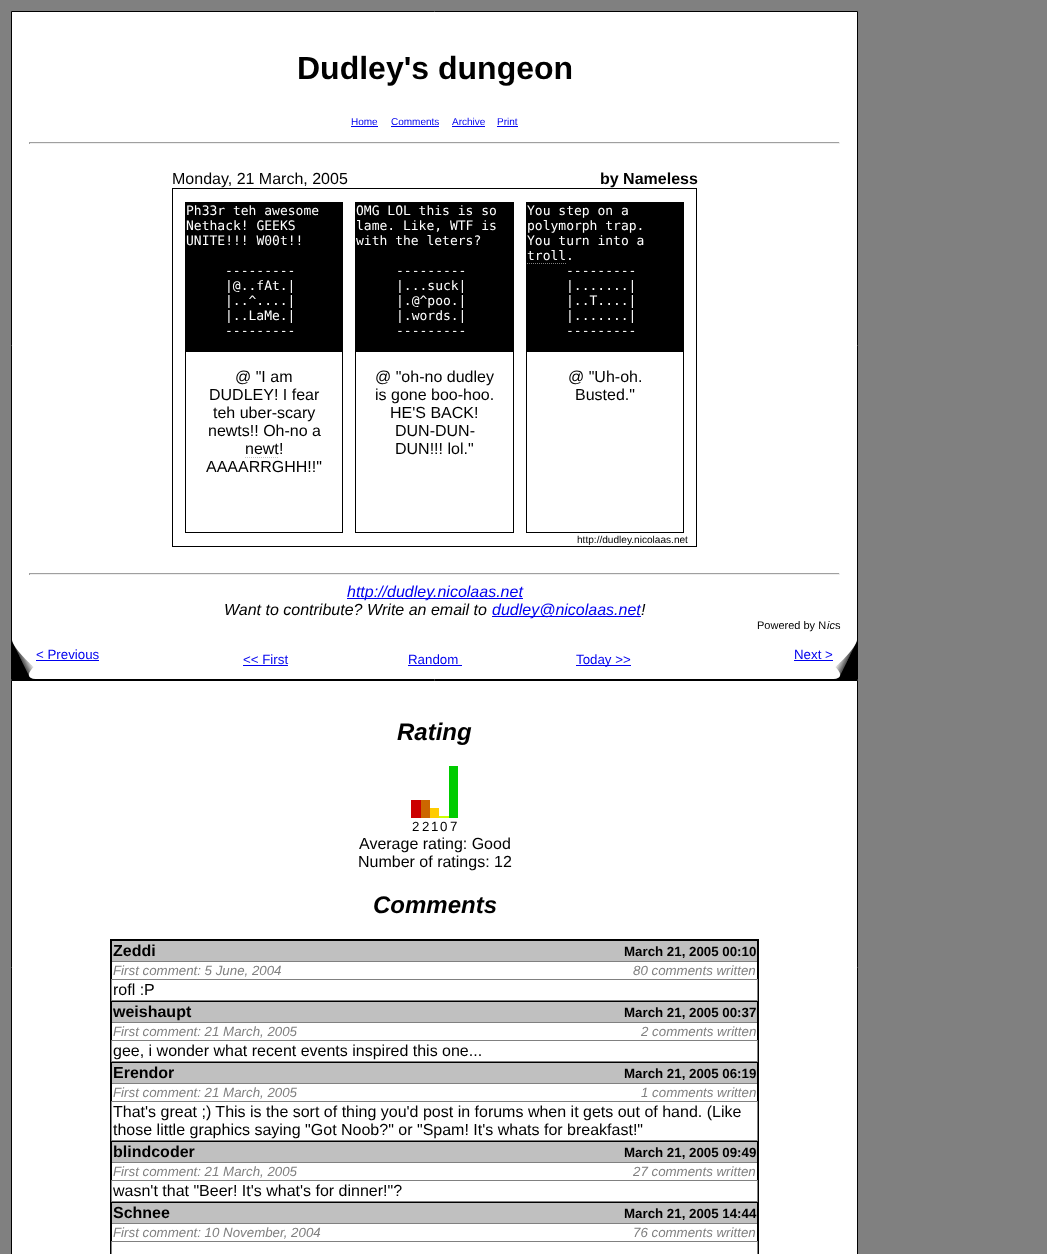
(async () => {
  const canvas = document.querySelector("canvas");
  canvas.width = 1047;
  canvas.height = 1254;
  const ctx = canvas.getContext("2d");
  ctx.miterLimit = 4;
  ctx.fontKerning = "normal";
  async function loadImage(src) {
    const img = new Image();
    img.src = src;
    await img.decode();
    return img;
  }
  let path;

  ctx.fillStyle = "#808080";
  ctx.fillRect(0, 0, 1047, 1254);
  ctx.fillStyle = "#ffffff";
  ctx.beginPath();
  ctx.rect(11.5, 11.5, 846, 668);
  ctx.fill();
  ctx.strokeStyle = "#000000";
  ctx.stroke();
  for (const [x, y, w, h, color] of [
    [351, 126, 27, 1, "#0000ee"],
    [391, 126, 48, 1, "#0000ee"],
    [452, 126, 33, 1, "#0000ee"],
    [497, 126, 21, 1, "#0000ee"],
    [29, 142, 811, 1, "#9f9f9f"],
    [839, 142, 1, 2, "#eeeeee"],
    [29, 143, 811, 1, "#eeeeee"],
    [29, 142, 1, 2, "#9f9f9f"],
  ]) {
    ctx.fillStyle = color;
    ctx.fillRect(x, y, w, h);
  }
  ctx.strokeRect(172.5, 188.5, 524, 358);
  ctx.fillStyle = "#000000";
  ctx.fillRect(185, 202, 158, 331);
  ctx.fillStyle = "#ffffff";
  ctx.fillRect(186, 352, 156, 180);
  path = new Path2D("M245 457.5H279");
  ctx.strokeStyle = "#c0c0c0";
  ctx.setLineDash([1, 1]);
  ctx.stroke(path);
  for (const [x, y, w, h, color] of [
    [355, 202, 159, 331, "#000000"],
    [356, 352, 157, 180, "#ffffff"],
    [526, 202, 158, 331, "#000000"],
  ]) {
    ctx.fillStyle = color;
    ctx.fillRect(x, y, w, h);
  }
  path = new Path2D("M527 263.5H566");
  ctx.strokeStyle = "#808080";
  ctx.stroke(path);
  for (const [x, y, w, h, color] of [
    [527, 352, 156, 180, "#ffffff"],
    [29, 573, 811, 1, "#9f9f9f"],
    [839, 573, 1, 2, "#eeeeee"],
    [29, 574, 811, 1, "#eeeeee"],
    [29, 573, 1, 2, "#9f9f9f"],
    [347, 598, 176, 1, "#0000ee"],
    [492, 616, 149, 1, "#0000ee"],
  ]) {
    ctx.fillStyle = color;
    ctx.fillRect(x, y, w, h);
  }
  ctx.drawImage(await loadImage("img/1.png"), 12, 640, 23, 39);
  for (const [x, y, w, h, color] of [
    [36, 660, 63, 1, "#0000ee"],
    [243, 665, 45, 1, "#0000ee"],
    [408, 665, 54, 1, "#0000ee"],
    [576, 665, 55, 1, "#0000ee"],
    [794, 660, 39, 1, "#0000ee"],
  ]) {
    ctx.fillStyle = color;
    ctx.fillRect(x, y, w, h);
  }
  ctx.drawImage(await loadImage("img/2.png"), 834, 640, 23, 39);
  ctx.fillStyle = "#ffffff";
  ctx.beginPath();
  ctx.rect(11.5, 680.5, 846, 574);
  ctx.fill();
  ctx.strokeStyle = "#000000";
  ctx.setLineDash([]);
  ctx.stroke();
  for (const [x, y, w, h, color] of [
    [411, 800, 10, 18, "#cc0000"],
    [421, 800, 9, 18, "#cc6600"],
    [430, 808, 9, 10, "#ffcc00"],
    [439, 816, 10, 2, "#ccff00"],
    [449, 766, 9, 52, "#00cc00"],
  ]) {
    ctx.fillStyle = color;
    ctx.fillRect(x, y, w, h);
  }
  ctx.strokeRect(110.5, 939.5, 648, 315);
  for (const [x, y, w, h, color] of [
    [112, 941, 645, 20, "#c0c0c0"],
    [111, 940, 647, 1, "#000000"],
    [111, 940, 1, 21, "#000000"],
    [757, 940, 1, 21, "#000000"],
    [111, 961, 647, 1, "#808080"],
    [111, 961, 1, 18, "#000000"],
    [757, 961, 1, 18, "#000000"],
  ]) {
    ctx.fillStyle = color;
    ctx.fillRect(x, y, w, h);
  }
  ctx.strokeStyle = "#808080";
  ctx.strokeRect(111.5, 979.5, 646, 21);
  for (const [x, y, w, h, color] of [
    [112, 1002, 645, 20, "#c0c0c0"],
    [111, 1001, 647, 1, "#000000"],
    [111, 1001, 1, 21, "#000000"],
    [757, 1001, 1, 21, "#000000"],
    [111, 1022, 647, 1, "#808080"],
    [111, 1022, 1, 18, "#000000"],
    [757, 1022, 1, 18, "#000000"],
  ]) {
    ctx.fillStyle = color;
    ctx.fillRect(x, y, w, h);
  }
  ctx.strokeRect(111.5, 1040.5, 646, 21);
  for (const [x, y, w, h, color] of [
    [112, 1063, 645, 20, "#c0c0c0"],
    [111, 1062, 647, 1, "#000000"],
    [111, 1062, 1, 21, "#000000"],
    [757, 1062, 1, 21, "#000000"],
    [111, 1083, 647, 1, "#808080"],
    [111, 1083, 1, 18, "#000000"],
    [757, 1083, 1, 18, "#000000"],
  ]) {
    ctx.fillStyle = color;
    ctx.fillRect(x, y, w, h);
  }
  ctx.strokeRect(111.5, 1101.5, 646, 39);
  for (const [x, y, w, h, color] of [
    [112, 1142, 645, 20, "#c0c0c0"],
    [111, 1141, 647, 1, "#000000"],
    [111, 1141, 1, 21, "#000000"],
    [757, 1141, 1, 21, "#000000"],
    [111, 1162, 647, 1, "#808080"],
    [111, 1162, 1, 18, "#000000"],
    [757, 1162, 1, 18, "#000000"],
  ]) {
    ctx.fillStyle = color;
    ctx.fillRect(x, y, w, h);
  }
  ctx.strokeRect(111.5, 1180.5, 646, 21);
  for (const [x, y, w, h, color] of [
    [112, 1203, 645, 20, "#c0c0c0"],
    [111, 1202, 647, 1, "#000000"],
    [111, 1202, 1, 21, "#000000"],
    [757, 1202, 1, 21, "#000000"],
    [111, 1223, 647, 1, "#808080"],
    [111, 1223, 1, 18, "#000000"],
    [757, 1223, 1, 18, "#000000"],
  ]) {
    ctx.fillStyle = color;
    ctx.fillRect(x, y, w, h);
  }
  ctx.strokeRect(111.5, 1241.5, 646, 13);
  ctx.font = "bold 32px Liberation Sans";
  ctx.fillText("Dudley's dungeon", 297, 79);
  ctx.font = "10px Liberation Sans";
  ctx.fillStyle = "#0000ee";
  for (const [text, x, y] of [
    ["Home", 351, 125],
    ["Comments", 391, 125],
    ["Archive", 452, 125],
    ["Print", 497, 125],
  ]) {
    ctx.fillText(text, x, y);
  }
  ctx.font = "16px Liberation Sans";
  ctx.fillStyle = "#000000";
  ctx.fillText("Monday, 21 March, 2005", 172, 184);
  ctx.font = "bold 16px Liberation Sans";
  ctx.fillText("by Nameless", 600, 184);
  ctx.font = "13px DejaVu Sans Mono";
  ctx.fillStyle = "#ffffff";
  for (const [text, x, y] of [
    ["Ph33r teh awesome", 186, 215],
    ["Nethack! GEEKS", 186, 230],
    ["UNITE!!! W00t!!", 186, 245],
    ["---------", 225, 275],
    ["|@..fAt.|", 225, 290],
    ["|..^....|", 225, 305],
    ["|..LaMe.|", 225, 320],
    ["---------", 225, 335],
  ]) {
    ctx.fillText(text, x, y);
  }
  ctx.font = "16px Liberation Sans";
  ctx.fillStyle = "#000000";
  for (const [text, x, y] of [
    ["@ \"I am", 235, 382],
    ["DUDLEY! I fear", 209, 400],
    ["teh uber-scary", 213, 418],
    ["newts!! Oh-no a", 208, 436],
    ["newt", 245, 454],
    ["!", 279, 454],
    ["AAAARRGHH!!\"", 206, 472],
  ]) {
    ctx.fillText(text, x, y);
  }
  ctx.font = "13px DejaVu Sans Mono";
  ctx.fillStyle = "#ffffff";
  for (const [text, x, y] of [
    ["OMG LOL this is so", 356, 215],
    ["lame. Like, WTF is", 356, 230],
    ["with the leters?", 356, 245],
    ["---------", 396, 275],
    ["|...suck|", 396, 290],
    ["|.@^poo.|", 396, 305],
    ["|.words.|", 396, 320],
    ["---------", 396, 335],
  ]) {
    ctx.fillText(text, x, y);
  }
  ctx.font = "16px Liberation Sans";
  ctx.fillStyle = "#000000";
  for (const [text, x, y] of [
    ["@ \"oh-no dudley", 375, 382],
    ["is gone boo-hoo.", 375, 400],
    ["HE'S BACK!", 390, 418],
    ["DUN-DUN-", 395, 436],
    ["DUN!!! lol.\"", 395, 454],
  ]) {
    ctx.fillText(text, x, y);
  }
  ctx.font = "13px DejaVu Sans Mono";
  ctx.fillStyle = "#ffffff";
  for (const [text, x, y] of [
    ["You step on a", 527, 215],
    ["polymorph trap.", 527, 230],
    ["You turn into a", 527, 245],
    ["troll", 527, 260],
    [".", 566, 260],
    ["---------", 566, 275],
    ["|.......|", 566, 290],
    ["|..T....|", 566, 305],
    ["|.......|", 566, 320],
    ["---------", 566, 335],
  ]) {
    ctx.fillText(text, x, y);
  }
  ctx.font = "16px Liberation Sans";
  ctx.fillStyle = "#000000";
  ctx.fillText("@ \"Uh-oh.", 568, 382);
  ctx.fillText("Busted.\"", 575, 400);
  ctx.font = "10.1px Liberation Sans";
  ctx.fillText("http://dudley.nicolaas.net", 577, 543);
  ctx.font = "italic 16px Liberation Sans";
  ctx.fillStyle = "#0000ee";
  ctx.fillText("http://dudley.nicolaas.net", 347, 597);
  ctx.fillStyle = "#000000";
  ctx.fillText("Want to contribute? Write an email to", 224, 615);
  ctx.fillStyle = "#0000ee";
  ctx.fillText("dudley@nicolaas.net", 492, 615);
  ctx.fillStyle = "#000000";
  ctx.fillText("!", 641, 615);
  ctx.font = "11px Liberation Sans";
  ctx.fillText("Powered by N", 757, 629);
  ctx.font = "italic 11px Liberation Sans";
  ctx.fillText("ic", 827, 629);
  ctx.font = "11px Liberation Sans";
  ctx.fillText("s", 835, 629);
  ctx.font = "13.3px Liberation Sans";
  ctx.fillStyle = "#0000ee";
  for (const [text, x, y] of [
    ["< Previous", 36, 659],
    ["<< First", 243, 664],
    ["Random", 408, 664],
    ["Today >>", 576, 664],
    ["Next >", 794, 659],
  ]) {
    ctx.fillText(text, x, y);
  }
  ctx.font = "italic bold 24px Liberation Sans";
  ctx.fillStyle = "#000000";
  ctx.fillText("Rating", 397, 740);
  ctx.font = "13.3px Liberation Sans";
  for (const [text, x, y] of [
    ["2", 412, 831],
    ["2", 422, 831],
    ["1", 431, 831],
    ["0", 440, 831],
    ["7", 450, 831],
  ]) {
    ctx.fillText(text, x, y);
  }
  ctx.font = "16px Liberation Sans";
  ctx.fillText("Average rating: Good", 359, 849);
  ctx.fillText("Number of ratings: 12", 358, 867);
  ctx.font = "italic bold 24px Liberation Sans";
  ctx.fillText("Comments", 373, 913);
  ctx.font = "bold 16px Liberation Sans";
  ctx.fillText("Zeddi", 113, 956);
  ctx.font = "bold 13.3px Liberation Sans";
  ctx.fillText("March 21, 2005 00:10", 624, 956);
  ctx.font = "italic 13.3px Liberation Sans";
  ctx.fillStyle = "#808080";
  ctx.fillText("First comment: 5 June, 2004", 113, 975);
  ctx.fillText("80 comments written", 633, 975);
  ctx.font = "16px Liberation Sans";
  ctx.fillStyle = "#000000";
  ctx.fillText("rofl :P", 113, 995);
  ctx.font = "bold 16px Liberation Sans";
  ctx.fillText("weishaupt", 113, 1017);
  ctx.font = "bold 13.3px Liberation Sans";
  ctx.fillText("March 21, 2005 00:37", 624, 1017);
  ctx.font = "italic 13.3px Liberation Sans";
  ctx.fillStyle = "#808080";
  ctx.fillText("First comment: 21 March, 2005", 113, 1036);
  ctx.fillText("2 comments written", 641, 1036);
  ctx.font = "16px Liberation Sans";
  ctx.fillStyle = "#000000";
  ctx.fillText("gee, i wonder what recent events inspired this one...", 113, 1056);
  ctx.font = "bold 16px Liberation Sans";
  ctx.fillText("Erendor", 113, 1078);
  ctx.font = "bold 13.3px Liberation Sans";
  ctx.fillText("March 21, 2005 06:19", 624, 1078);
  ctx.font = "italic 13.3px Liberation Sans";
  ctx.fillStyle = "#808080";
  ctx.fillText("First comment: 21 March, 2005", 113, 1097);
  ctx.fillText("1 comments written", 641, 1097);
  ctx.font = "16px Liberation Sans";
  ctx.fillStyle = "#000000";
  ctx.fillText("That's great ;) This is the sort of thing you'd post in forums when it gets out of hand. (Like", 113, 1117);
  ctx.fillText("those little graphics saying \"Got Noob?\" or \"Spam! It's whats for breakfast!\"", 113, 1135);
  ctx.font = "bold 16px Liberation Sans";
  ctx.fillText("blindcoder", 113, 1157);
  ctx.font = "bold 13.3px Liberation Sans";
  ctx.fillText("March 21, 2005 09:49", 624, 1157);
  ctx.font = "italic 13.3px Liberation Sans";
  ctx.fillStyle = "#808080";
  ctx.fillText("First comment: 21 March, 2005", 113, 1176);
  ctx.fillText("27 comments written", 633, 1176);
  ctx.font = "16px Liberation Sans";
  ctx.fillStyle = "#000000";
  ctx.fillText("wasn't that \"Beer! It's what's for dinner!\"?", 113, 1196);
  ctx.font = "bold 16px Liberation Sans";
  ctx.fillText("Schnee", 113, 1218);
  ctx.font = "bold 13.3px Liberation Sans";
  ctx.fillText("March 21, 2005 14:44", 624, 1218);
  ctx.font = "italic 13.3px Liberation Sans";
  ctx.fillStyle = "#808080";
  ctx.fillText("First comment: 10 November, 2004", 113, 1237);
  ctx.fillText("76 comments written", 633, 1237);
})();
